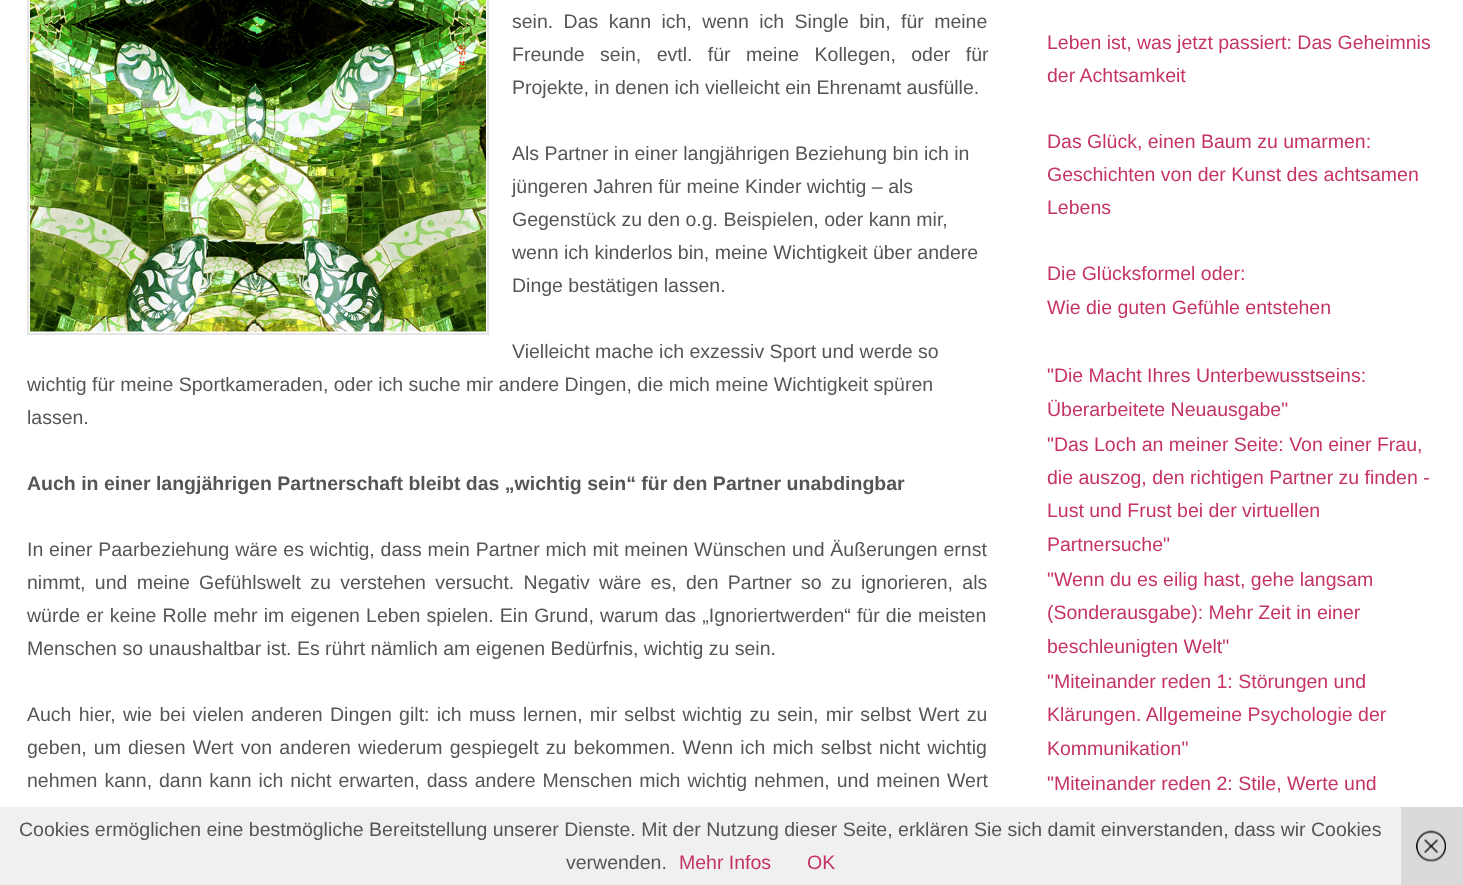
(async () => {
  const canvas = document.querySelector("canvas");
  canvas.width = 1463;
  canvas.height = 885;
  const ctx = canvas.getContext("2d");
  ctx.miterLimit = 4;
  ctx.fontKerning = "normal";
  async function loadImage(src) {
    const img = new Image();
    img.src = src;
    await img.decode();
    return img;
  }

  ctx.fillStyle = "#ffffff";
  ctx.fillRect(0, 0, 1463, 885);
  ctx.strokeStyle = "#e5e5e5";
  ctx.lineWidth = 2;
  ctx.strokeRect(28, -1, 460, 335);
  ctx.drawImage(await loadImage("img/1.png"), 30, 0, 456, 332);
  ctx.fillStyle = "rgba(238, 238, 238, 0.9)";
  ctx.fillRect(0, 807, 1401, 78);
  ctx.fillStyle = "#dadada";
  ctx.fillRect(1401, 807, 62, 78);
  ctx.drawImage(await loadImage("img/2.png"), 1416, 830, 30, 32);
  ctx.wordSpacing = "5px";
  ctx.font = "19.5px Liberation Sans";
  ctx.fillStyle = "#555555";
  ctx.fillText("sein. Das kann ich, wenn ich Single bin, für meine", 512, 28);
  ctx.wordSpacing = "10px";
  ctx.fillText("Freunde sein, evtl. für meine Kollegen, oder für", 512, 61);
  ctx.wordSpacing = "0px";
  for (const [text, x, y] of [
    ["Projekte, in denen ich vielleicht ein Ehrenamt ausfülle.", 512, 94],
    ["Als Partner in einer langjährigen Beziehung bin ich in", 512, 160],
    ["jüngeren Jahren für meine Kinder wichtig – als", 512, 193],
    ["Gegenstück zu den o.g. Beispielen, oder kann mir,", 512, 226],
    ["wenn ich kinderlos bin, meine Wichtigkeit über andere", 512, 259],
    ["Dinge bestätigen lassen.", 512, 292],
    ["Vielleicht mache ich exzessiv Sport und werde so", 512, 358],
    ["wichtig für meine Sportkameraden, oder ich suche mir andere Dingen, die mich meine Wichtigkeit spüren", 27, 391],
    ["lassen.", 27, 424],
  ]) {
    ctx.fillText(text, x, y);
  }
  ctx.font = "bold 19.5px Liberation Sans";
  ctx.fillText("Auch in einer langjährigen Partnerschaft bleibt das „wichtig sein“ für den Partner unabdingbar", 27, 490);
  ctx.wordSpacing = "0.4px";
  ctx.font = "19.5px Liberation Sans";
  ctx.fillText("In einer Paarbeziehung wäre es wichtig, dass mein Partner mich mit meinen Wünschen und Äußerungen ernst", 27, 556);
  ctx.wordSpacing = "3.9px";
  ctx.fillText("nimmt, und meine Gefühlswelt zu verstehen versucht. Negativ wäre es, den Partner so zu ignorieren, als", 27, 589);
  ctx.wordSpacing = "0.75px";
  ctx.fillText("würde er keine Rolle mehr im eigenen Leben spielen. Ein Grund, warum das „Ignoriertwerden“ für die meisten", 27, 622);
  ctx.wordSpacing = "0px";
  ctx.fillText("Menschen so unaushaltbar ist. Es rührt nämlich am eigenen Bedürfnis, wichtig zu sein.", 27, 655);
  ctx.wordSpacing = "1.9px";
  ctx.fillText("Auch hier, wie bei vielen anderen Dingen gilt: ich muss lernen, mir selbst wichtig zu sein, mir selbst Wert zu", 27, 721);
  ctx.wordSpacing = "1.75px";
  ctx.fillText("geben, um diesen Wert von anderen wiederum gespiegelt zu bekommen. Wenn ich mich selbst nicht wichtig", 27, 754);
  ctx.wordSpacing = "1.5px";
  ctx.fillText("nehmen kann, dann kann ich nicht erwarten, dass andere Menschen mich wichtig nehmen, und meinen Wert", 27, 787);
  ctx.wordSpacing = "0px";
  ctx.fillStyle = "#c53366";
  for (const [text, x, y] of [
    ["Leben ist, was jetzt passiert: Das Geheimnis", 1047, 49],
    ["der Achtsamkeit", 1047, 82],
    ["Das Glück, einen Baum zu umarmen:", 1047, 148],
    ["Geschichten von der Kunst des achtsamen", 1047, 181],
    ["Lebens", 1047, 214],
    ["Die Glücksformel oder:", 1047, 280],
    ["Wie die guten Gefühle entstehen", 1047, 314],
    ["\"Die Macht Ihres Unterbewusstseins:", 1047, 382],
    ["Überarbeitete Neuausgabe\"", 1047, 416],
    ["\"Das Loch an meiner Seite: Von einer Frau,", 1047, 451],
    ["die auszog, den richtigen Partner zu finden -", 1047, 484],
    ["Lust und Frust bei der virtuellen", 1047, 517],
    ["Partnersuche\"", 1047, 551],
    ["\"Wenn du es eilig hast, gehe langsam", 1047, 586],
    ["(Sonderausgabe): Mehr Zeit in einer", 1047, 619],
    ["beschleunigten Welt\"", 1047, 653],
    ["\"Miteinander reden 1: Störungen und", 1047, 688],
    ["Klärungen. Allgemeine Psychologie der", 1047, 721],
    ["Kommunikation\"", 1047, 755],
    ["\"Miteinander reden 2: Stile, Werte und", 1047, 790],
  ]) {
    ctx.fillText(text, x, y);
  }
  ctx.fillStyle = "#555555";
  ctx.fillText("Cookies ermöglichen eine bestmögliche Bereitstellung unserer Dienste. Mit der Nutzung dieser Seite, erklären Sie sich damit einverstanden, dass wir Cookies", 19, 836);
  ctx.fillText("verwenden.", 566, 869);
  ctx.fillStyle = "#c53366";
  ctx.fillText("Mehr Infos", 679, 869);
  ctx.fillText("OK", 807, 869);
})();
